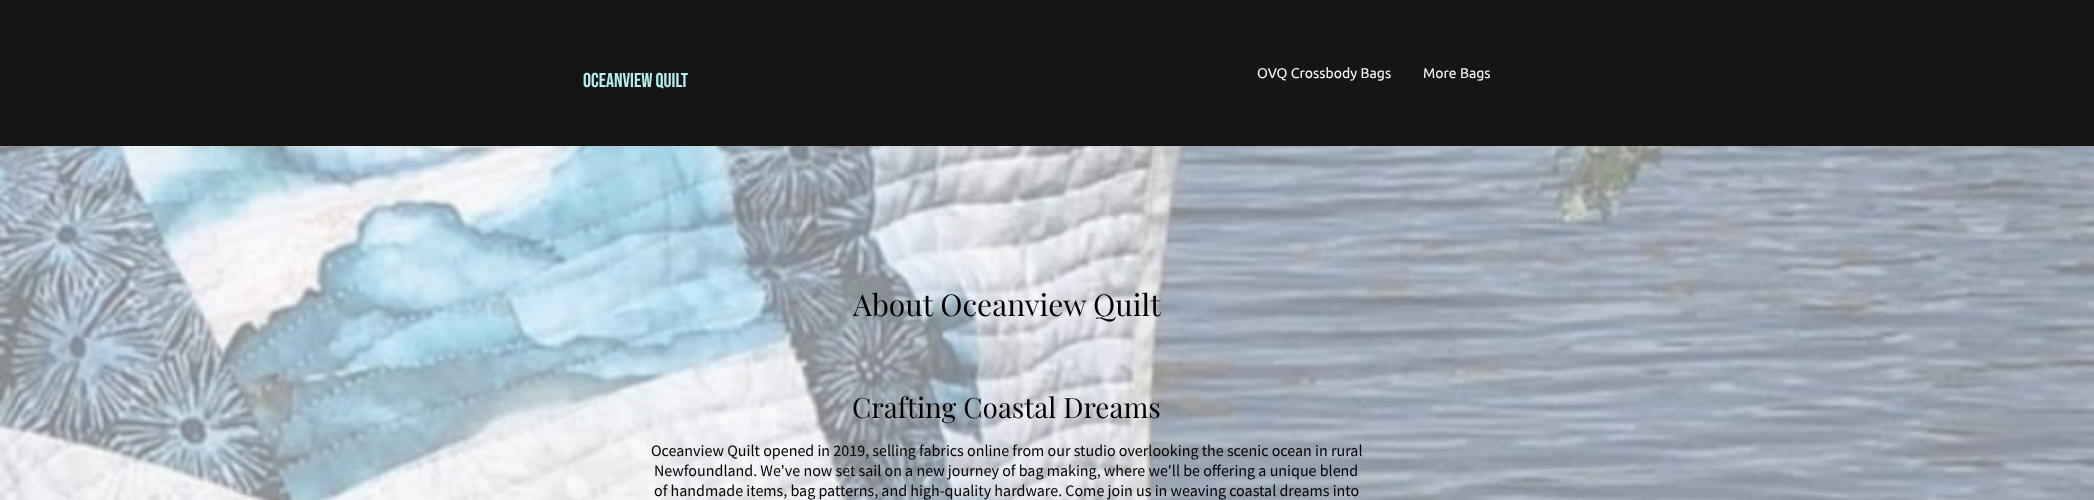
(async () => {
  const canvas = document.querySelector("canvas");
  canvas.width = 2094;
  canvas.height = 500;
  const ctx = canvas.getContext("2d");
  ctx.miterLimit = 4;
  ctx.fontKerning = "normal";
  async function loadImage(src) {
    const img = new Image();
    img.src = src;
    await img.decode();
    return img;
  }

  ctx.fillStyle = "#ffffff";
  ctx.fillRect(0, 0, 2094, 500);
  ctx.fillStyle = "#151515";
  ctx.fillRect(0, 0, 2094, 146);
  ctx.drawImage(await loadImage("img/1.png"), 583, 72, 105, 17);
  ctx.drawImage(await loadImage("img/2.png"), 0, 146, 2094, 354);
  ctx.font = "14px Ubuntu";
  ctx.fillStyle = "#f8f8f8";
  ctx.fillText("OVQ Crossbody Bags", 1257, 78);
  ctx.fillText("More Bags", 1423, 78);
  ctx.font = "30px Playfair Display";
  ctx.fillStyle = "#000000";
  ctx.fillText("About Oceanview Quilt", 853, 316);
  ctx.font = "28px Playfair Display";
  ctx.fillText("Crafting Coastal Dreams", 852, 418);
  ctx.font = "16px Source Sans Pro";
  for (const [text, x, y] of [
    ["Oceanview Quilt opened in 2019, selling fabrics online from our studio overlooking the scenic ocean in rural", 651, 456],
    ["Newfoundland. We've now set sail on a new journey of bag making, where we'll be offering a unique blend", 654, 476],
    ["of handmade items, bag patterns, and high-quality hardware. Come join us in weaving coastal dreams into", 654, 496],
  ]) {
    ctx.fillText(text, x, y);
  }
})();
